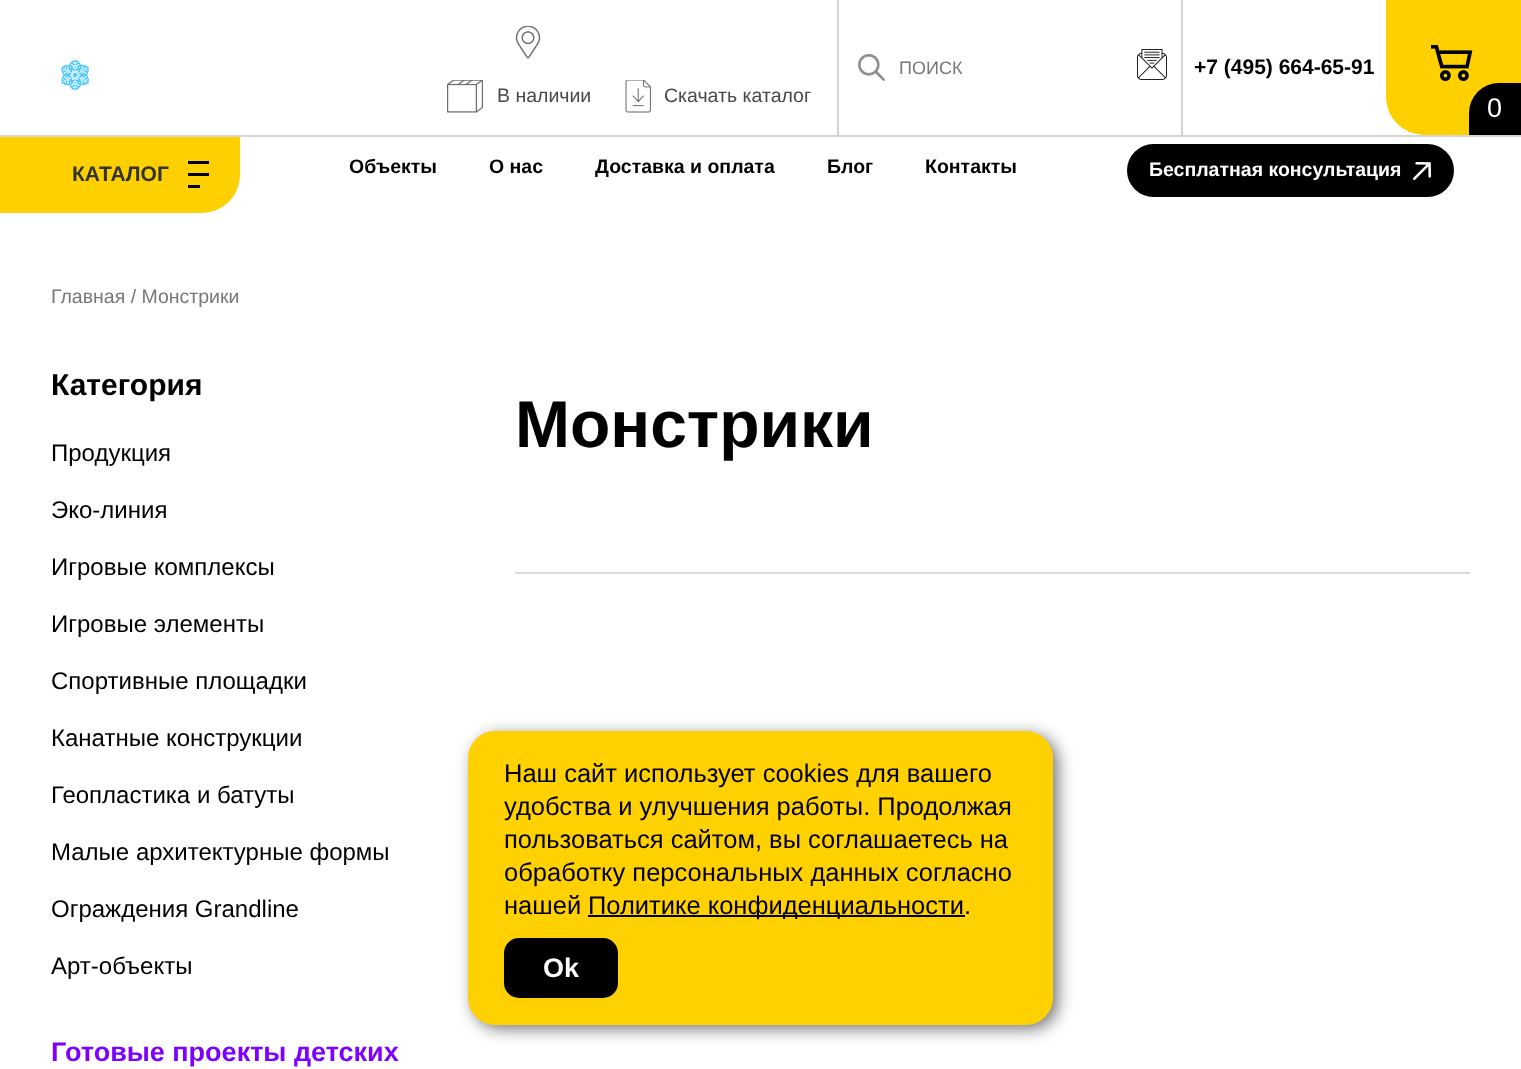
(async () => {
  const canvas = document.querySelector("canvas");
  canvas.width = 1521;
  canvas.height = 1069;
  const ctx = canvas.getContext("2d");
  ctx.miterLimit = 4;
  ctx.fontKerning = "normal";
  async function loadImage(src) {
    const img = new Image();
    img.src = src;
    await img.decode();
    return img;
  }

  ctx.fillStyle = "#ffffff";
  ctx.fillRect(0, 0, 1521, 1069);
  ctx.fillStyle = "#d4d4d4";
  ctx.fillRect(0, 135, 1521, 2);
  ctx.drawImage(await loadImage("img/1.png"), 858, 54, 27, 27);
  ctx.fillRect(1181, 0, 2, 135);
  ctx.fillRect(837, 0, 2, 135);
  ctx.drawImage(await loadImage("img/2.png"), 1137, 49, 30, 31);
  ctx.drawImage(await loadImage("img/3.png"), 515, 26, 26, 33);
  ctx.drawImage(await loadImage("img/4.png"), 447, 80, 37, 33);
  ctx.drawImage(await loadImage("img/5.png"), 625, 80, 26, 33);
  ctx.fillStyle = "#fed000";
  ctx.beginPath();
  ctx.roundRect(1386, 0, 135, 135, [0, 0, 0, 38]);
  ctx.fill();
  ctx.drawImage(await loadImage("img/6.png"), 1431, 45, 42, 36);
  ctx.fillStyle = "#000000";
  ctx.beginPath();
  ctx.roundRect(1469, 83, 52, 52, [30, 0, 0, 0]);
  ctx.fill();
  ctx.fillStyle = "#fed000";
  ctx.beginPath();
  ctx.roundRect(0, 137, 240, 76, [0, 0, 38, 0]);
  ctx.fill();
  for (const [x, y, w, h, color] of [
    [188, 161, 21, 3, "#000000"],
    [188, 173, 21, 3, "#000000"],
    [188, 185, 12, 3, "#000000"],
  ]) {
    ctx.fillStyle = color;
    ctx.fillRect(x, y, w, h);
  }
  ctx.beginPath();
  ctx.roundRect(1127, 144, 327, 53, 26.5);
  ctx.fill();
  ctx.drawImage(await loadImage("img/7.png"), 1413, 162, 18, 18);
  ctx.fillStyle = "#d9d9de";
  ctx.fillRect(515, 572, 955, 2);
  ctx.drawImage(await loadImage("img/8.png"), 61, 60, 28, 30);
  ctx.drawImage(await loadImage("img/9.png"), 61, 60, 28, 30);
  ctx.drawImage(await loadImage("img/10.png"), 61, 60, 28, 30);
  ctx.drawImage(await loadImage("img/11.png"), 61, 60, 28, 30);
  ctx.drawImage(await loadImage("img/12.png"), 61, 60, 28, 30);
  ctx.drawImage(await loadImage("img/13.png"), 61, 60, 28, 30);
  ctx.drawImage(await loadImage("img/14.png"), 61, 60, 28, 30);
  ctx.drawImage(await loadImage("img/15.png"), 61, 60, 28, 30);
  ctx.fillStyle = "#777777";
  ctx.filter = "blur(8px)";
  ctx.beginPath();
  ctx.roundRect(473, 735, 585, 294, 27);
  ctx.fill();
  ctx.filter = "none";
  ctx.fillStyle = "#ffd100";
  ctx.beginPath();
  ctx.roundRect(468, 731, 585, 294, 27);
  ctx.fill();
  ctx.fillStyle = "#000000";
  ctx.fillRect(588, 915, 377, 2);
  ctx.beginPath();
  ctx.roundRect(504, 938, 114, 60, 15);
  ctx.fill();
  ctx.font = "18px Liberation Sans";
  ctx.fillStyle = "#777777";
  ctx.fillText("ПОИСК", 899, 74);
  ctx.font = "bold 21px Liberation Sans";
  ctx.fillStyle = "#000000";
  ctx.fillText("+7 (495) 664-65-91", 1194, 74);
  ctx.font = "19.5px Liberation Sans";
  ctx.fillStyle = "#494949";
  ctx.fillText("В наличии", 497, 102);
  ctx.fillText("Скачать каталог", 664, 102);
  ctx.font = "27px Liberation Sans";
  ctx.fillStyle = "#ffffff";
  ctx.fillText("0", 1487, 117);
  ctx.font = "bold 21px Liberation Sans";
  ctx.fillStyle = "#333333";
  ctx.fillText("КАТАЛОГ", 72, 181);
  ctx.font = "bold 19.5px Liberation Sans";
  ctx.fillStyle = "#000000";
  for (const [text, x, y] of [
    ["Объекты", 349, 173],
    ["О нас", 489, 173],
    ["Доставка и оплата", 595, 173],
    ["Блог", 827, 173],
    ["Контакты", 925, 173],
  ]) {
    ctx.fillText(text, x, y);
  }
  ctx.fillStyle = "#ffffff";
  ctx.fillText("Бесплатная консультация", 1149, 176);
  ctx.font = "19.5px Liberation Sans";
  ctx.fillStyle = "#777777";
  ctx.fillText("Главная / Монстрики", 51, 303);
  ctx.font = "bold 30px Liberation Sans";
  ctx.fillStyle = "#000000";
  ctx.fillText("Категория", 51, 395);
  ctx.font = "24px Liberation Sans";
  for (const [text, x, y] of [
    ["Продукция", 51, 461],
    ["Эко-линия", 51, 518],
    ["Игровые комплексы", 51, 575],
    ["Игровые элементы", 51, 632],
    ["Спортивные площадки", 51, 689],
    ["Канатные конструкции", 51, 746],
    ["Геопластика и батуты", 51, 803],
    ["Малые архитектурные формы", 51, 860],
    ["Ограждения Grandline", 51, 917],
    ["Арт-объекты", 51, 974],
  ]) {
    ctx.fillText(text, x, y);
  }
  ctx.font = "bold 27px Liberation Sans";
  ctx.fillStyle = "#7e00ff";
  ctx.fillText("Готовые проекты детских", 51, 1061);
  ctx.font = "bold 66px Liberation Sans";
  ctx.fillStyle = "#000000";
  ctx.fillText("Монстрики", 515, 447);
  ctx.font = "25.5px Liberation Sans";
  for (const [text, x, y] of [
    ["Наш сайт использует cookies для вашего", 504, 782],
    ["удобства и улучшения работы. Продолжая", 504, 815],
    ["пользоваться сайтом, вы соглашаетесь на", 504, 848],
    ["обработку персональных данных согласно", 504, 881],
    ["нашей", 504, 914],
    ["Политике конфиденциальности.", 588, 914],
  ]) {
    ctx.fillText(text, x, y);
  }
  ctx.font = "bold 27px Liberation Sans";
  ctx.fillStyle = "#ffffff";
  ctx.fillText("Ok", 543, 977);
})();
